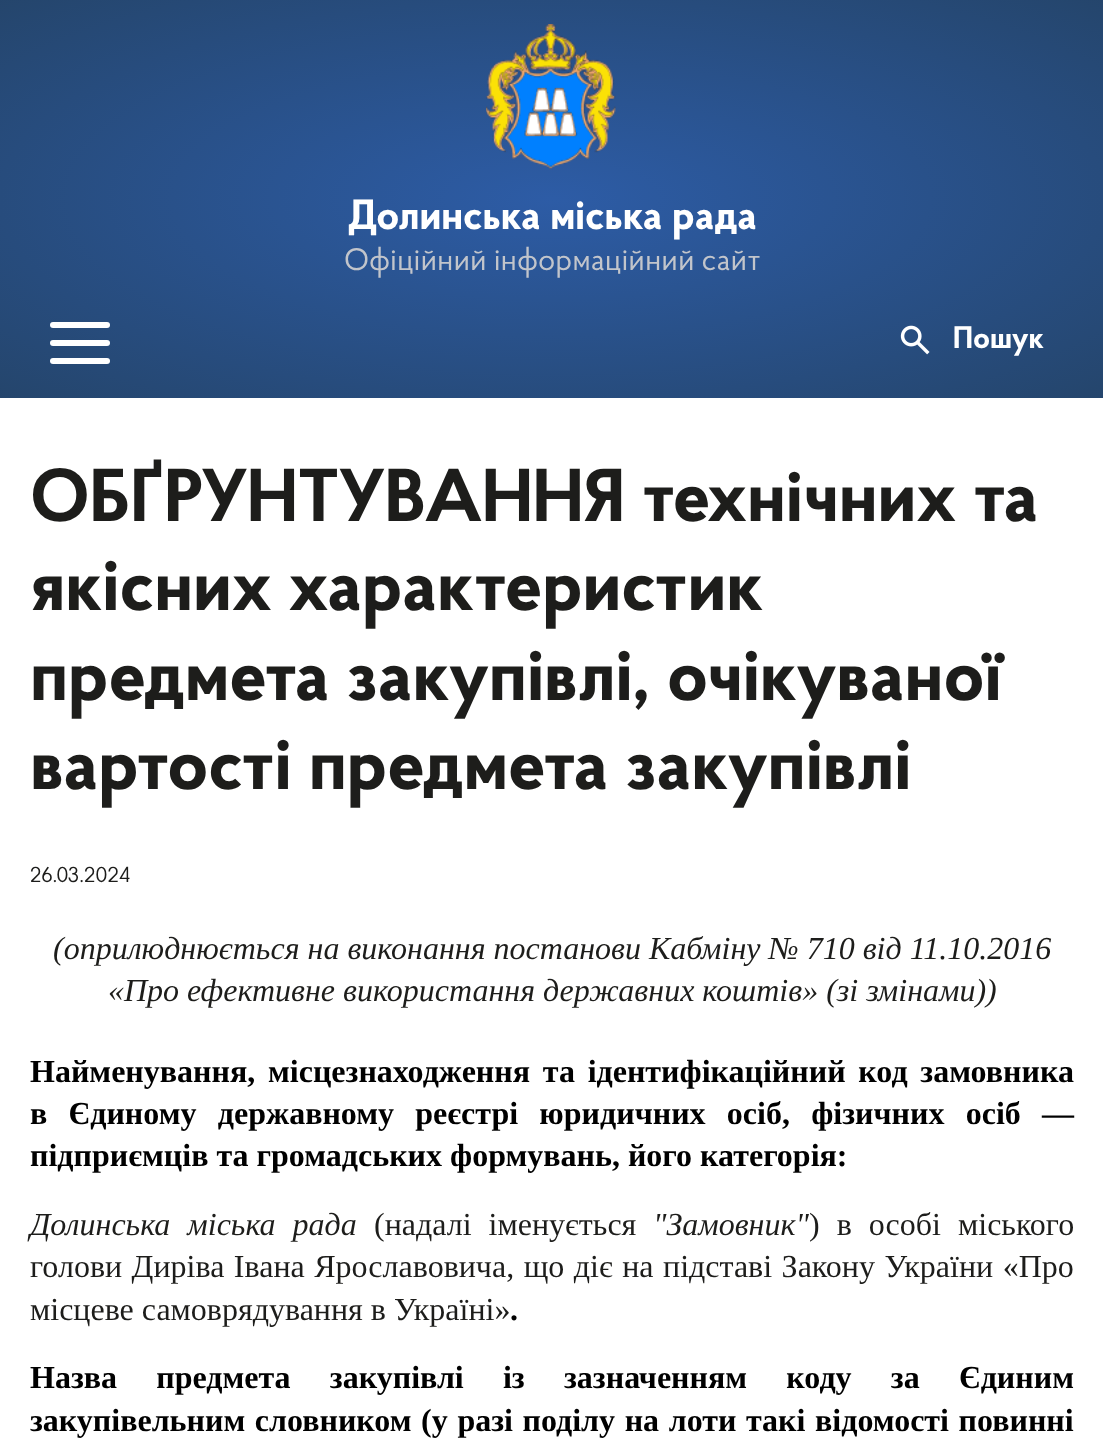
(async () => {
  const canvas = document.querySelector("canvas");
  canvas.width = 1103;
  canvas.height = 1456;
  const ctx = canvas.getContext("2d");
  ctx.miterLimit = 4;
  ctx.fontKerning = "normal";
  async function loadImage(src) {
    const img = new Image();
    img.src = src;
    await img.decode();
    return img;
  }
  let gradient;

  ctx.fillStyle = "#ffffff";
  ctx.fillRect(0, 0, 1103, 1456);
  gradient = ctx.createRadialGradient(552, 551.4, 0, 552, 551.4, 931);
  gradient.addColorStop(0, "#2d5ca6");
  gradient.addColorStop(1, "#234161");
  ctx.fillStyle = gradient;
  ctx.beginPath();
  ctx.rect(0, 0, 1103, 398);
  ctx.save();
  ctx.clip();
  ctx.scale(1, 336 / 931);
  ctx.fillRect(0, 0, 1103, 4035);
  ctx.restore();
  ctx.drawImage(await loadImage("img/1.png"), 486, 24, 130, 146);
  ctx.fillStyle = "#ffffff";
  ctx.beginPath();
  ctx.roundRect(50, 340, 60, 6, 3);
  ctx.fill();
  ctx.beginPath();
  ctx.roundRect(50, 322, 60, 6, 3);
  ctx.fill();
  ctx.beginPath();
  ctx.roundRect(50, 358, 60, 6, 3);
  ctx.fill();
  ctx.drawImage(await loadImage("img/2.png"), 900, 325, 30, 30);
  ctx.font = "bold 42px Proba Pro";
  ctx.fillText("Долинська міська рада", 348, 229);
  ctx.font = "31.1px Proba Pro";
  ctx.fillStyle = "#c2c5cb";
  ctx.fillText("Офіційний інформаційний сайт", 344, 270);
  ctx.font = "bold 31.1px Proba Pro";
  ctx.fillStyle = "#ffffff";
  ctx.fillText("Пошук", 953, 348);
  ctx.font = "bold 74.7px Proba Pro";
  ctx.fillStyle = "#1d1d1b";
  for (const [text, x, y] of [
    ["ОБҐРУНТУВАННЯ технічних та", 30, 521],
    ["якісних характеристик", 30, 610],
    ["предмета закупівлі, очікуваної", 30, 700],
    ["вартості предмета закупівлі", 30, 789],
  ]) {
    ctx.fillText(text, x, y);
  }
  ctx.font = "21.75px Proba Pro";
  ctx.fillText("26.03.2024", 30, 882);
  ctx.font = "italic 32px Liberation Serif";
  ctx.fillText("(оприлюднюється на виконання постанови Кабміну № 710 від 11.10.2016", 53, 959);
  ctx.fillText("«Про ефективне використання державних коштів» (зі змінами))", 108, 1001);
  ctx.wordSpacing = "4.75px";
  ctx.font = "bold 32px Liberation Serif";
  ctx.fillStyle = "#000000";
  ctx.fillText("Найменування, місцезнаходження та ідентифікаційний код замовника", 30, 1082);
  ctx.wordSpacing = "13.25px";
  ctx.fillText("в Єдиному державному реєстрі юридичних осіб, фізичних осіб —", 30, 1124);
  ctx.wordSpacing = "0px";
  ctx.fillText("підприємців та громадських формувань, його категорія:", 30, 1166);
  ctx.wordSpacing = "9px";
  ctx.font = "italic 32px Liberation Serif";
  ctx.fillStyle = "#1d1d1b";
  ctx.fillText("Долинська міська рада", 30, 1235);
  ctx.font = "32px Liberation Serif";
  ctx.fillText("(надалі іменується", 374, 1235);
  ctx.wordSpacing = "0px";
  ctx.font = "italic 32px Liberation Serif";
  ctx.fillText("\"Замовник\"", 653, 1235);
  ctx.wordSpacing = "9px";
  ctx.font = "32px Liberation Serif";
  ctx.fillText(") в особі", 809, 1235);
  ctx.wordSpacing = "0px";
  ctx.fillText("міського", 958, 1235);
  ctx.wordSpacing = "1.5px";
  ctx.fillText("голови Диріва Івана Ярославовича, що діє на підставі Закону України «Про", 30, 1277);
  ctx.wordSpacing = "0px";
  ctx.fillText("місцеве самоврядування в Україні»", 30, 1320);
  ctx.font = "bold 32px Liberation Serif";
  ctx.fillStyle = "#000000";
  ctx.fillText(".", 510, 1320);
  ctx.wordSpacing = "31.25px";
  ctx.fillText("Назва предмета закупівлі із зазначенням коду за Єдиним", 30, 1388);
  ctx.wordSpacing = "1.6px";
  ctx.fillText("закупівельним словником (у разі поділу на лоти такі відомості повинні", 30, 1431);
})();
